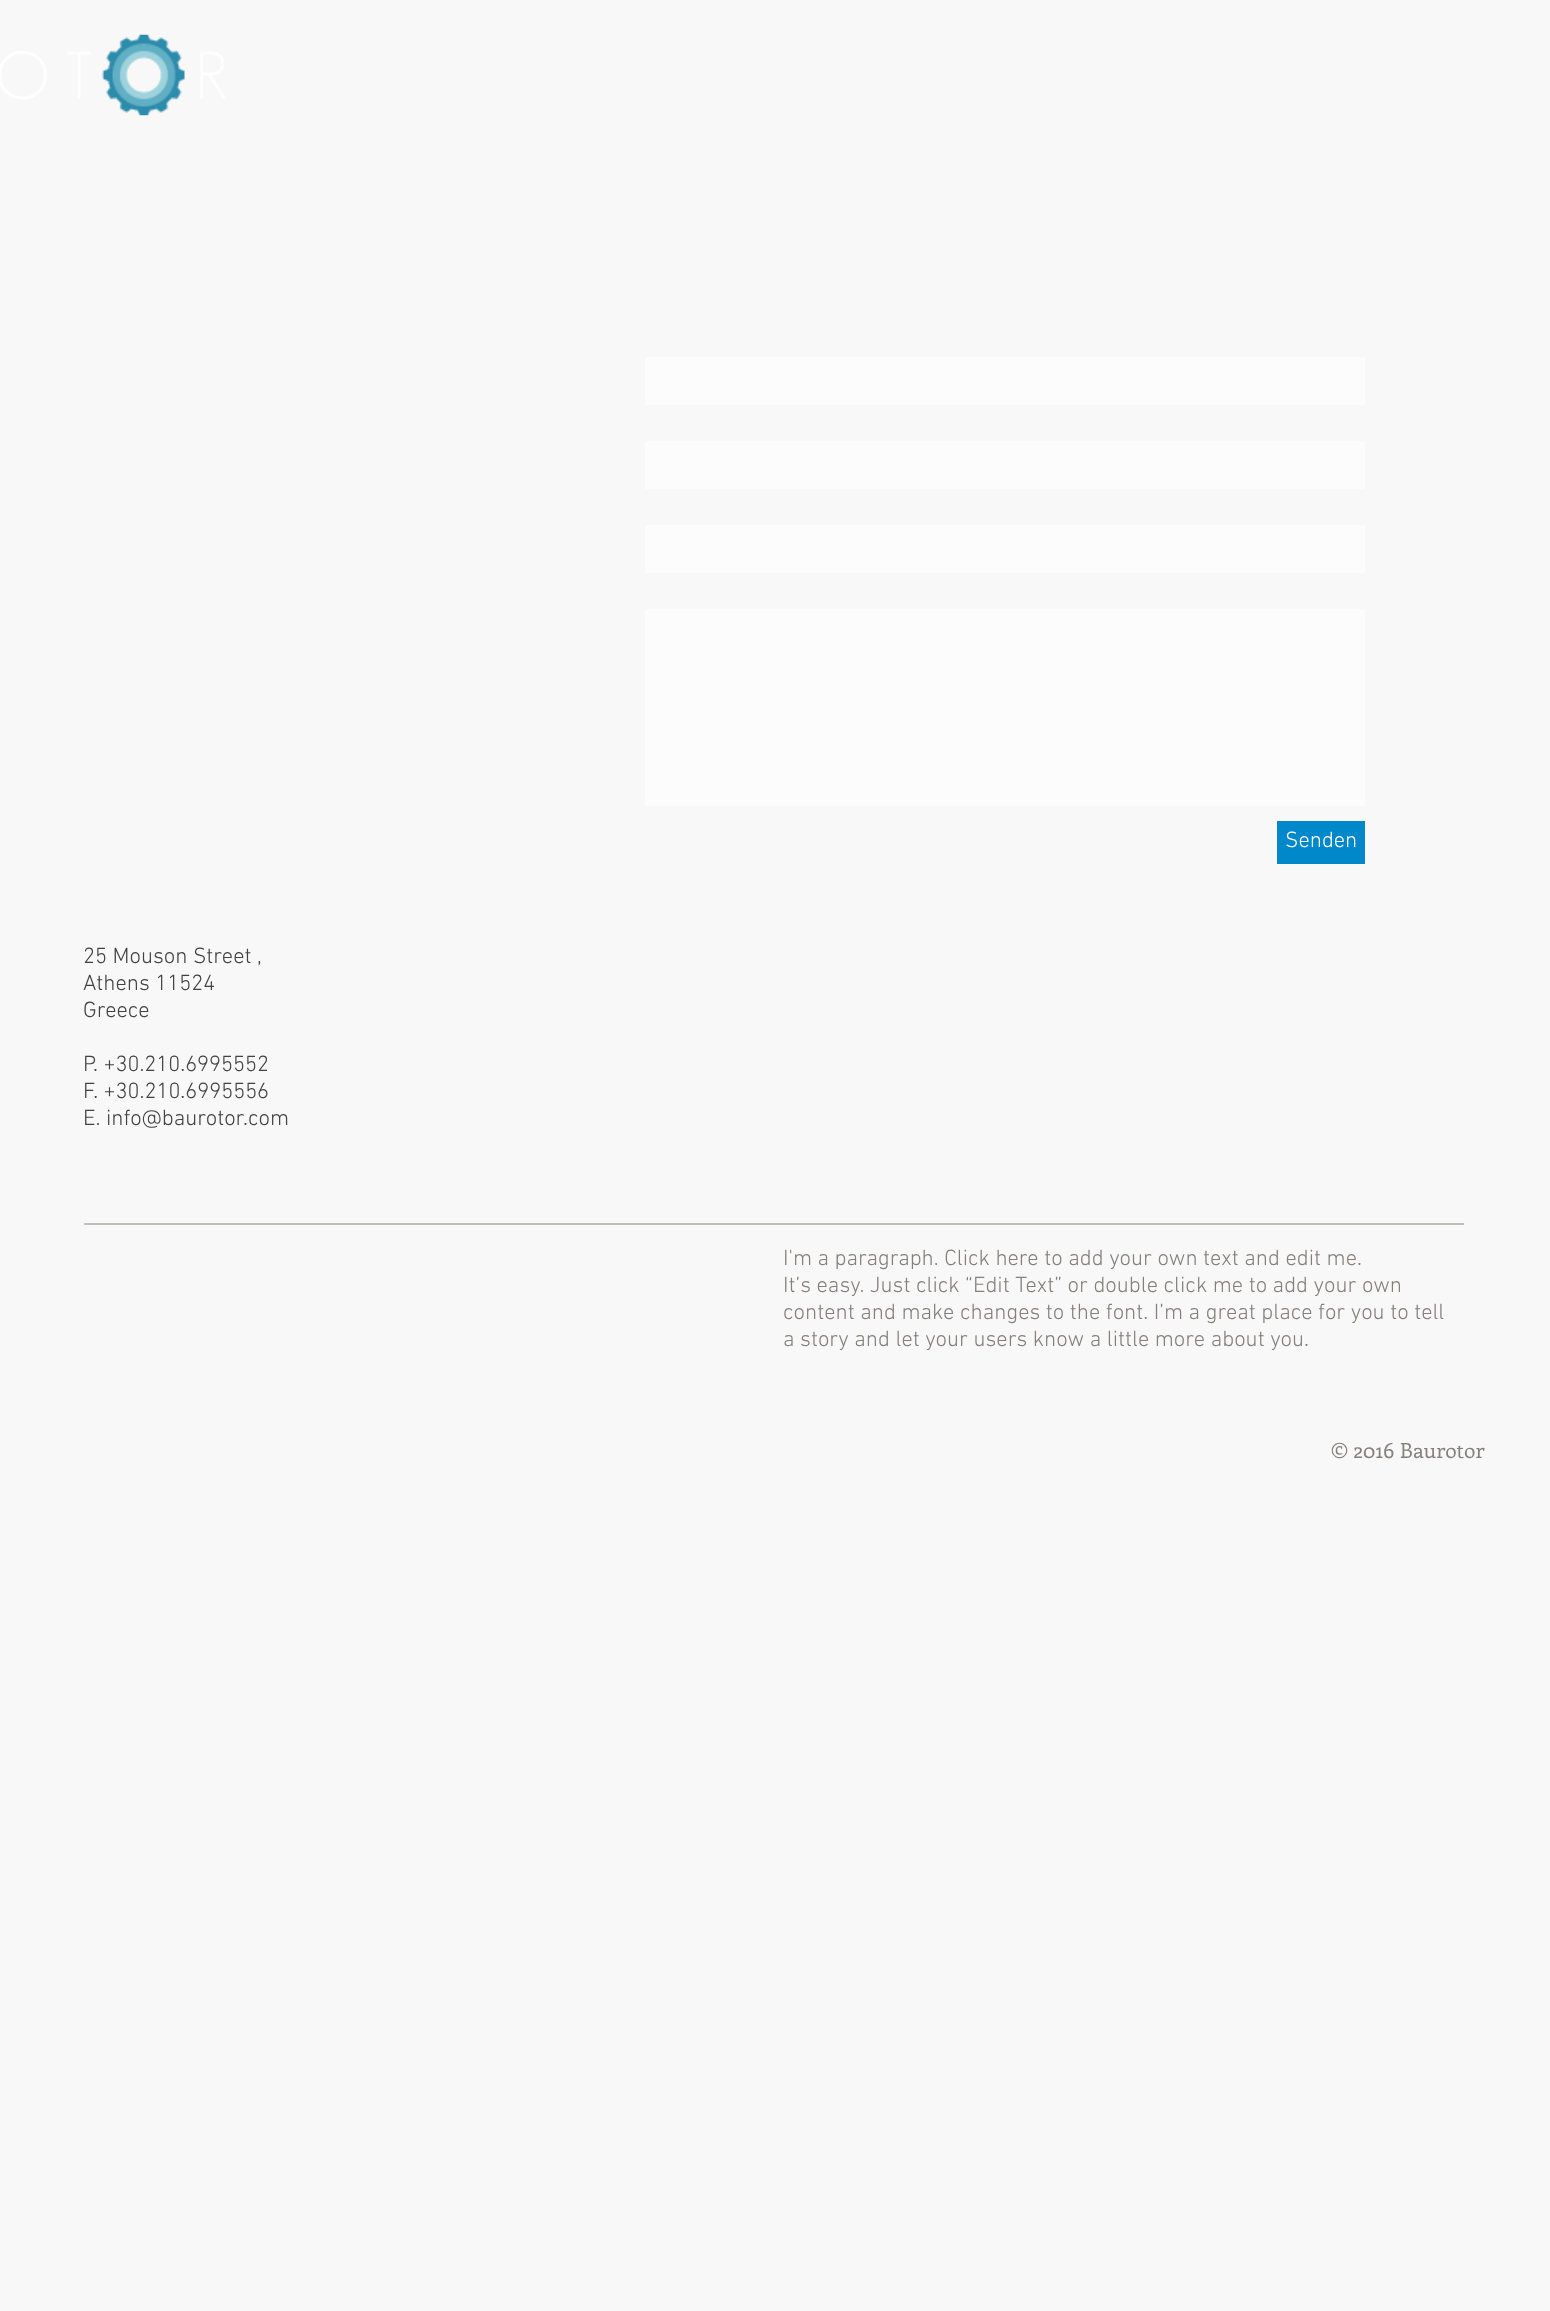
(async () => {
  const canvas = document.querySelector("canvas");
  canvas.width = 1550;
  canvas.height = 2311;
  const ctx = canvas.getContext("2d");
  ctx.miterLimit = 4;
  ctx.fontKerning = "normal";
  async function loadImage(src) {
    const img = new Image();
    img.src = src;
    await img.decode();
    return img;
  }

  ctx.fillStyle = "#f8f8f8";
  ctx.fillRect(0, 0, 1550, 2311);
  ctx.drawImage(await loadImage("img/1.png"), 0, 34, 225, 82);
  for (const [x, y, w, h, color] of [
    [645, 357, 720, 48, "#fcfcfc"],
    [645, 441, 720, 48, "#fcfcfc"],
    [645, 525, 720, 48, "#fcfcfc"],
    [645, 609, 720, 197, "#fcfcfc"],
    [1277, 821, 88, 43, "#0088cb"],
    [84, 1223, 1380, 2, "#c2bfb9"],
  ]) {
    ctx.fillStyle = color;
    ctx.fillRect(x, y, w, h);
  }
  ctx.font = "300 22.5px 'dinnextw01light'";
  ctx.fillStyle = "#ffffff";
  ctx.fillText("Senden", 1285, 847);
  ctx.fillStyle = "#424242";
  for (const [text, x, y] of [
    ["25 Mouson Street ,", 83, 963],
    ["Athens 11524", 83, 990],
    ["Greece", 83, 1017],
    ["P. +30.210.6995552", 83, 1071],
    ["F. +30.210.6995556", 83, 1098],
    ["E. info@baurotor.com", 83, 1125],
  ]) {
    ctx.fillText(text, x, y);
  }
  ctx.fillStyle = "#848079";
  for (const [text, x, y] of [
    ["I'm a paragraph. Click here to add your own text and edit me.", 783, 1265],
    ["It’s easy. Just click “Edit Text” or double click me to add your own", 783, 1292],
    ["content and make changes to the font. I’m a great place for you to tell", 783, 1319],
    ["a story and let your users know a little more about you.", 783, 1346],
  ]) {
    ctx.fillText(text, x, y);
  }
  ctx.font = "21px Enriqueta";
  ctx.fillText("© 2016 Baurotor", 1331, 1458);
})();
